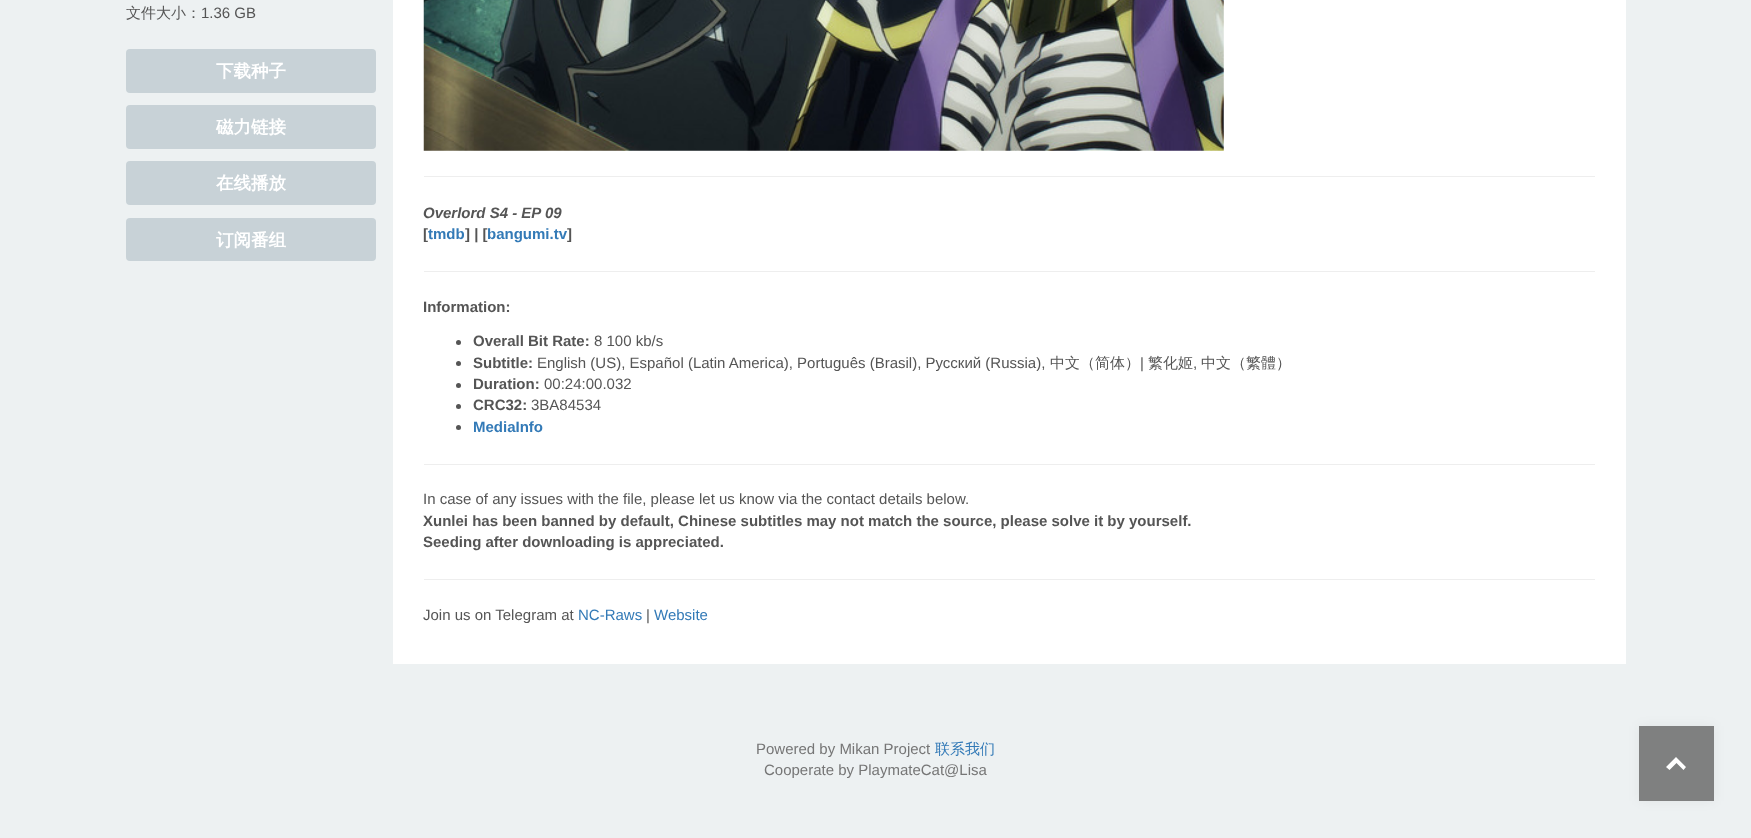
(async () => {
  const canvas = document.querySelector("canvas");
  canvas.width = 1751;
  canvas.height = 838;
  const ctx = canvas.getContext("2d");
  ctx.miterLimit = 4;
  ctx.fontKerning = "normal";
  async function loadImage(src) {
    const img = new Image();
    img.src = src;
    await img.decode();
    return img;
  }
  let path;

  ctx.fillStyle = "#edf1f2";
  ctx.fillRect(0, 0, 1751, 838);
  ctx.fillStyle = "#c8d2d7";
  ctx.beginPath();
  ctx.roundRect(126, 49, 250, 44, 4);
  ctx.fill();
  ctx.beginPath();
  ctx.roundRect(126, 105, 250, 44, 4);
  ctx.fill();
  ctx.beginPath();
  ctx.roundRect(126, 161, 250, 44, 4);
  ctx.fill();
  ctx.beginPath();
  ctx.roundRect(126, 218, 250, 43, 4);
  ctx.fill();
  ctx.fillStyle = "#ffffff";
  ctx.fillRect(393, 0, 1233, 664);
  ctx.drawImage(await loadImage("img/1.png"), 423, 0, 801, 151);
  ctx.fillStyle = "#eeeeee";
  ctx.fillRect(424, 176, 1171, 1);
  ctx.fillRect(424, 271, 1171, 1);
  ctx.fillStyle = "#555555";
  ctx.beginPath();
  ctx.arc(458.5, 342.5, 2.5, 0, Math.PI * 2);
  ctx.fill();
  ctx.beginPath();
  ctx.arc(458.5, 363.5, 2.5, 0, Math.PI * 2);
  ctx.fill();
  ctx.beginPath();
  ctx.arc(458.5, 385.5, 2.5, 0, Math.PI * 2);
  ctx.fill();
  ctx.beginPath();
  ctx.arc(458.5, 406.5, 2.5, 0, Math.PI * 2);
  ctx.fill();
  ctx.beginPath();
  ctx.arc(458.5, 427.5, 2.5, 0, Math.PI * 2);
  ctx.fill();
  ctx.fillStyle = "#eeeeee";
  ctx.fillRect(424, 464, 1171, 1);
  ctx.fillRect(424, 579, 1171, 1);
  ctx.fillStyle = "rgba(0, 0, 0, 0.05)";
  ctx.filter = "blur(6px)";
  ctx.beginPath();
  ctx.rect(1639, 726, 75, 75);
  ctx.fill();
  ctx.filter = "none";
  ctx.fillStyle = "#7f8080";
  ctx.fillRect(1639, 726, 75, 75);
  ctx.fillStyle = "#ffffff";
  path = new Path2D("M1676 757L1686 767L1683.5 770L1676.5 763L1669.5 770L1666 767Z");
  ctx.fill(path);
  ctx.font = "500 15px WenQuanYi Zen Hei";
  ctx.fillStyle = "#555555";
  ctx.fillText("文件大小：", 126, 18);
  ctx.font = "15px Liberation Sans";
  ctx.fillText("1.36 GB", 201, 18);
  ctx.font = "bold 17.5px WenQuanYi Zen Hei";
  ctx.fillStyle = "#ffffff";
  for (const [text, x, y] of [
    ["下载种子", 216, 77],
    ["磁力链接", 216, 133],
    ["在线播放", 216, 189],
    ["订阅番组", 216, 246],
  ]) {
    ctx.fillText(text, x, y);
  }
  ctx.font = "italic bold 15px Liberation Sans";
  ctx.fillStyle = "#555555";
  ctx.fillText("Overlord S4 - EP 09", 423, 218);
  ctx.font = "bold 15px Liberation Sans";
  ctx.fillText("[", 423, 239);
  ctx.fillStyle = "#337ab7";
  ctx.fillText("tmdb", 428, 239);
  ctx.fillStyle = "#555555";
  ctx.fillText("] | [", 465, 239);
  ctx.fillStyle = "#337ab7";
  ctx.fillText("bangumi.tv", 487, 239);
  ctx.fillStyle = "#555555";
  for (const [text, x, y] of [
    ["]", 567, 239],
    ["Information:", 423, 312],
    ["Overall Bit Rate:", 473, 346],
  ]) {
    ctx.fillText(text, x, y);
  }
  ctx.font = "15px Liberation Sans";
  ctx.fillText("8 100 kb/s", 594, 346);
  ctx.font = "bold 15px Liberation Sans";
  ctx.fillText("Subtitle:", 473, 368);
  ctx.font = "15px Liberation Sans";
  ctx.fillText("English (US), Español (Latin America), Português (Brasil), Русский (Russia),", 537, 368);
  ctx.font = "500 15px WenQuanYi Zen Hei";
  ctx.fillText("中文（简体）", 1050, 368);
  ctx.font = "15px Liberation Sans";
  ctx.fillText("|", 1140, 368);
  ctx.font = "500 15px WenQuanYi Zen Hei";
  ctx.fillText("繁化姬", 1148, 368);
  ctx.fillText("中文（繁體）", 1201, 368);
  ctx.font = "15px Liberation Sans";
  ctx.fillText(",", 1193, 368);
  ctx.font = "bold 15px Liberation Sans";
  ctx.fillText("Duration:", 473, 389);
  ctx.font = "15px Liberation Sans";
  ctx.fillText("00:24:00.032", 544, 389);
  ctx.font = "bold 15px Liberation Sans";
  ctx.fillText("CRC32:", 473, 410);
  ctx.font = "15px Liberation Sans";
  ctx.fillText("3BA84534", 531, 410);
  ctx.font = "bold 15px Liberation Sans";
  ctx.fillStyle = "#337ab7";
  ctx.fillText("MediaInfo", 473, 432);
  ctx.font = "15px Liberation Sans";
  ctx.fillStyle = "#555555";
  ctx.fillText("In case of any issues with the file, please let us know via the contact details below.", 423, 504);
  ctx.font = "bold 15px Liberation Sans";
  ctx.fillText("Xunlei has been banned by default, Chinese subtitles may not match the source, please solve it by yourself.", 423, 526);
  ctx.fillText("Seeding after downloading is appreciated.", 423, 547);
  ctx.font = "15px Liberation Sans";
  ctx.fillText("Join us on Telegram at", 423, 620);
  ctx.fillStyle = "#337ab7";
  ctx.fillText("NC-Raws", 578, 620);
  ctx.fillStyle = "#555555";
  ctx.fillText("|", 646, 620);
  ctx.fillStyle = "#337ab7";
  ctx.fillText("Website", 654, 620);
  ctx.fillStyle = "#767676";
  ctx.fillText("Powered by Mikan Project", 756, 754);
  ctx.font = "500 15px WenQuanYi Zen Hei";
  ctx.fillStyle = "#337ab7";
  ctx.fillText("联系我们", 935, 754);
  ctx.font = "15px Liberation Sans";
  ctx.fillStyle = "#767676";
  ctx.fillText("Cooperate by PlaymateCat@Lisa", 764, 775);
})();
